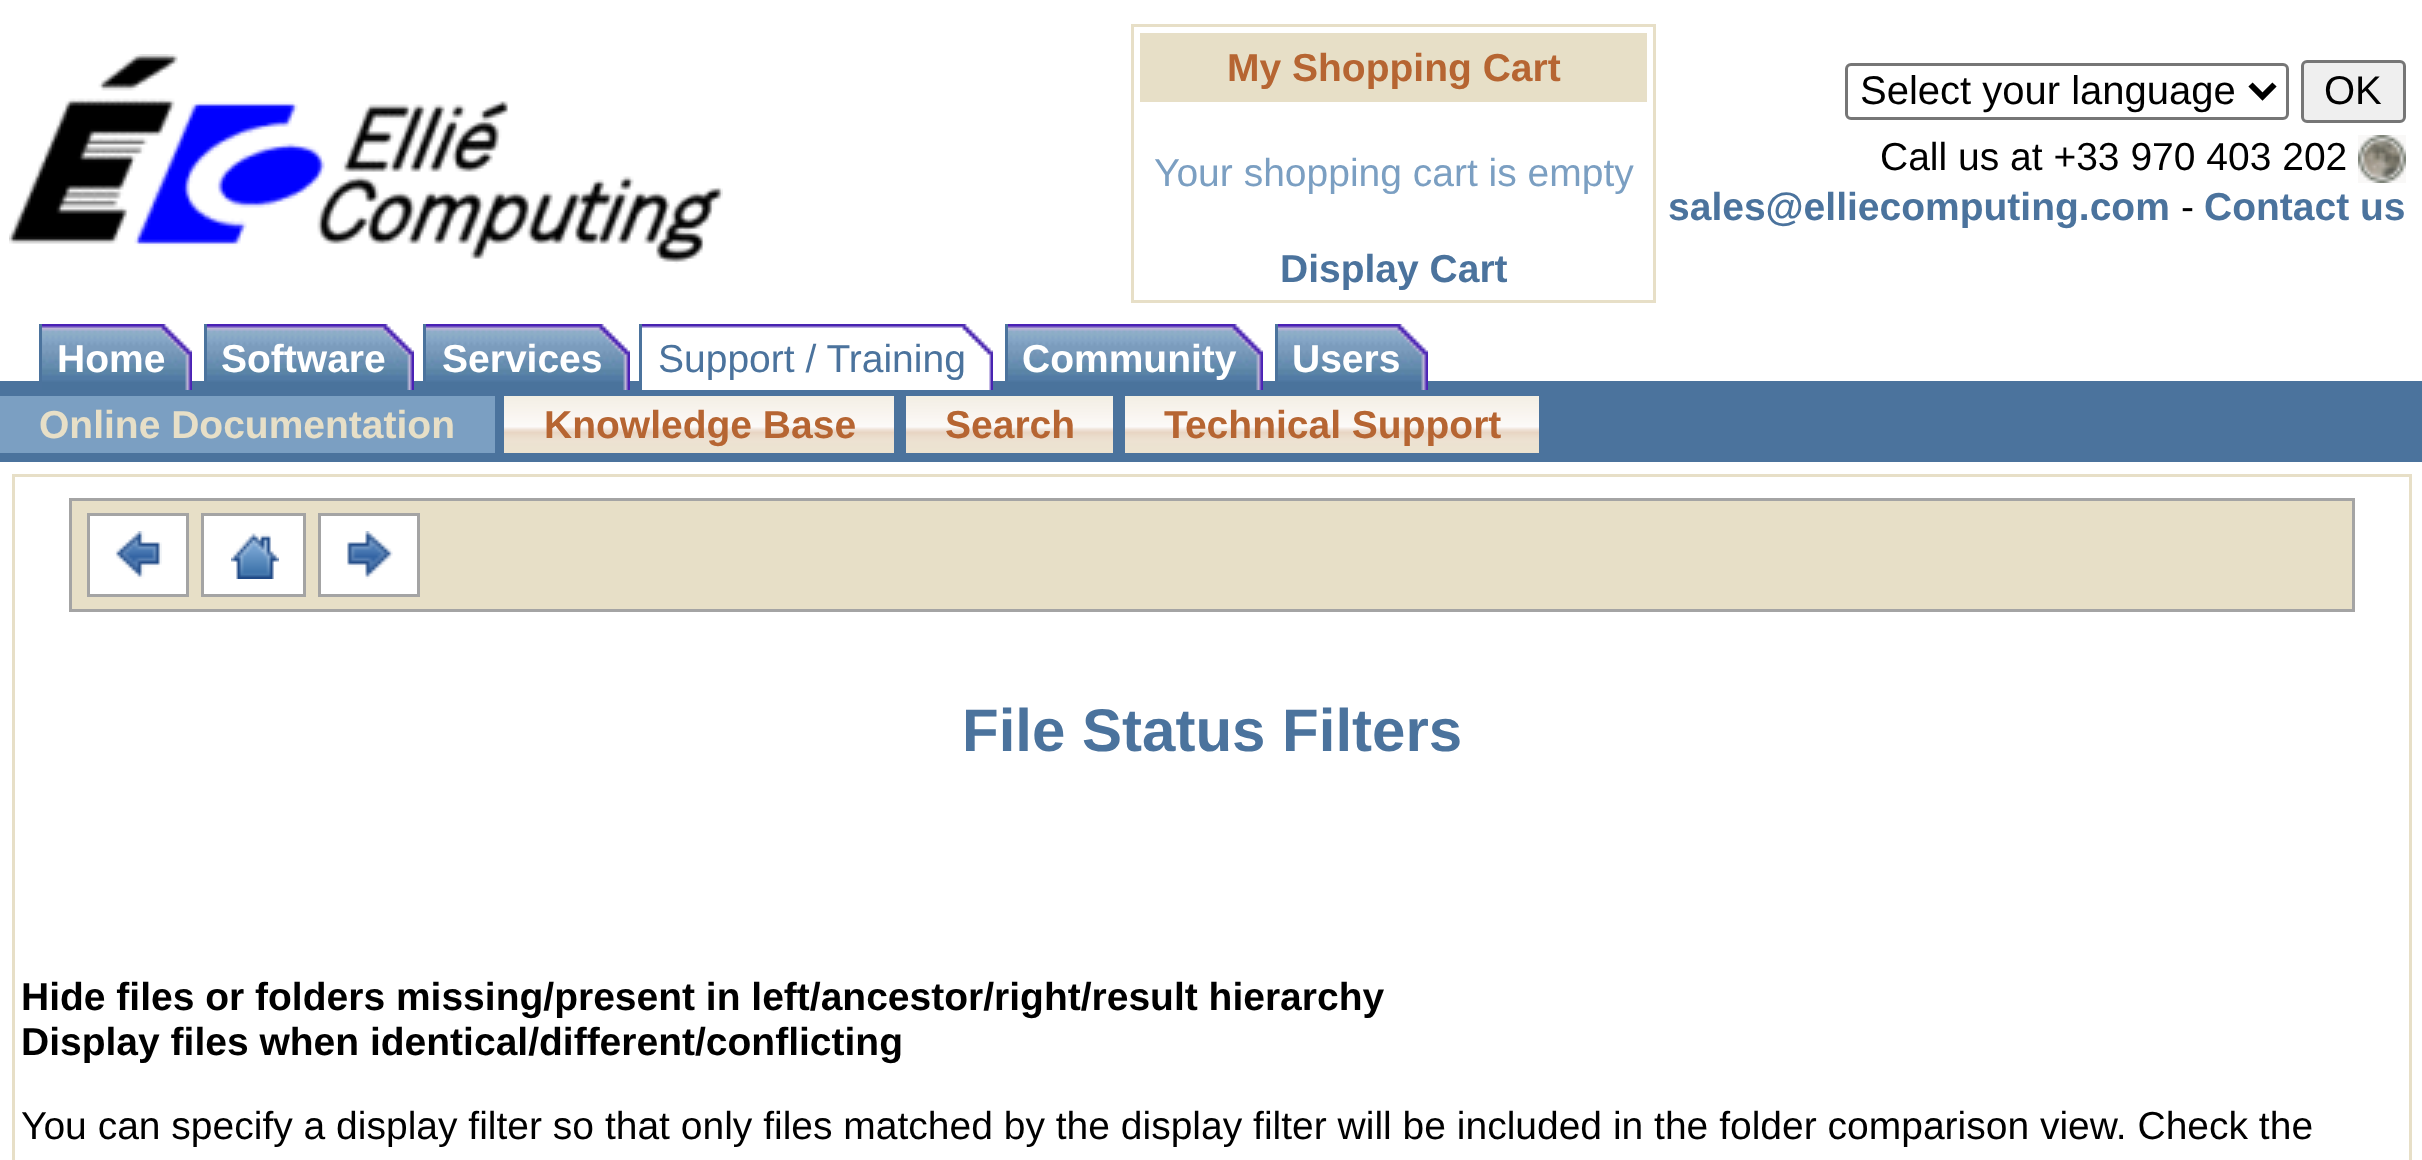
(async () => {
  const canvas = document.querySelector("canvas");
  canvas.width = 2422;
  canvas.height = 1160;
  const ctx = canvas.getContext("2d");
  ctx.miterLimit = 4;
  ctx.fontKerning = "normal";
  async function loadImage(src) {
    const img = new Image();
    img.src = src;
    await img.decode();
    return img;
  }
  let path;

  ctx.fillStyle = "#ffffff";
  ctx.fillRect(0, 0, 2422, 1160);
  ctx.drawImage(await loadImage("img/1.png"), 9, 54, 714, 210);
  ctx.strokeStyle = "#e7dfc7";
  ctx.lineWidth = 3;
  ctx.strokeRect(1132.5, 25.5, 522, 276);
  ctx.fillStyle = "#e7dfc7";
  ctx.fillRect(1140, 33, 507, 69);
  ctx.beginPath();
  ctx.roundRect(1846.5, 64.5, 441, 54, 4.5);
  ctx.strokeStyle = "#767676";
  ctx.stroke();
  path = new Path2D("M2250.5 84.5L2262.5 96.5L2274.5 84.5");
  ctx.strokeStyle = "#000000";
  ctx.lineWidth = 6;
  ctx.stroke(path);
  ctx.fillStyle = "#efefef";
  ctx.beginPath();
  ctx.roundRect(2302.5, 61.5, 102, 60, 4.5);
  ctx.fill();
  ctx.strokeStyle = "#767676";
  ctx.lineWidth = 3;
  ctx.stroke();
  ctx.drawImage(await loadImage("img/2.png"), 2358, 135, 48, 48);
  ctx.fillStyle = "#4b739d";
  ctx.fillRect(0, 381, 2422, 81);
  ctx.drawImage(await loadImage("img/3.png"), 42, 324, 150, 66);
  ctx.drawImage(await loadImage("img/4.png"), 207, 324, 207, 66);
  ctx.drawImage(await loadImage("img/5.png"), 426, 324, 204, 66);
  ctx.drawImage(await loadImage("img/6.png"), 642, 324, 351, 66);
  ctx.drawImage(await loadImage("img/7.png"), 1008, 324, 255, 66);
  ctx.drawImage(await loadImage("img/8.png"), 1278, 324, 150, 66);
  for (const [x, y, w, h, color] of [
    [39, 324, 3, 57, "#4b739d"],
    [204, 324, 3, 57, "#4b739d"],
    [423, 324, 3, 57, "#4b739d"],
    [639, 324, 3, 57, "#4b739d"],
    [1005, 324, 3, 57, "#4b739d"],
    [1275, 324, 3, 57, "#4b739d"],
    [0, 396, 495, 57, "#7b9fc2"],
  ]) {
    ctx.fillStyle = color;
    ctx.fillRect(x, y, w, h);
  }
  ctx.drawImage(await loadImage("img/9.png"), 504, 396, 390, 57);
  ctx.drawImage(await loadImage("img/10.png"), 906, 396, 207, 57);
  ctx.drawImage(await loadImage("img/11.png"), 1125, 396, 414, 57);
  ctx.strokeStyle = "#e7dfc7";
  ctx.strokeRect(13.5, 475.5, 2397, 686);
  ctx.fillStyle = "#e7dfc7";
  ctx.beginPath();
  ctx.rect(70.5, 499.5, 2283, 111);
  ctx.fill();
  ctx.strokeStyle = "#a4a4a4";
  ctx.stroke();
  ctx.fillStyle = "#ffffff";
  ctx.beginPath();
  ctx.rect(88.5, 514.5, 99, 81);
  ctx.fill();
  ctx.stroke();
  ctx.drawImage(await loadImage("img/12.png"), 114, 531, 48, 48);
  ctx.beginPath();
  ctx.rect(202.5, 514.5, 102, 81);
  ctx.fill();
  ctx.stroke();
  ctx.drawImage(await loadImage("img/13.png"), 231, 533, 48, 46);
  ctx.beginPath();
  ctx.rect(319.5, 514.5, 99, 81);
  ctx.fill();
  ctx.stroke();
  ctx.drawImage(await loadImage("img/14.png"), 347, 531, 46, 48);
  ctx.font = "bold 39px Liberation Sans";
  ctx.fillStyle = "#b66532";
  ctx.fillText("My Shopping Cart", 1227, 81);
  ctx.font = "39px Liberation Sans";
  ctx.fillStyle = "#7b9fc2";
  ctx.fillText("Your shopping cart is empty", 1154, 186);
  ctx.font = "bold 39px Liberation Sans";
  ctx.fillStyle = "#4b739d";
  ctx.fillText("Display Cart", 1280, 282);
  ctx.font = "40px Liberation Sans";
  ctx.fillStyle = "#000000";
  ctx.fillText("Select your language", 1860, 104);
  ctx.fillText("OK", 2324, 104);
  ctx.font = "39px Liberation Sans";
  ctx.fillText("Call us at +33 970 403 202", 1880, 170);
  ctx.font = "bold 39px Liberation Sans";
  ctx.fillStyle = "#4b739d";
  ctx.fillText("sales@elliecomputing.com", 1668, 220);
  ctx.font = "39px Liberation Sans";
  ctx.fillStyle = "#000000";
  ctx.fillText("-", 2181, 220);
  ctx.font = "bold 39px Liberation Sans";
  ctx.fillStyle = "#4b739d";
  ctx.fillText("Contact us", 2204, 220);
  ctx.fillStyle = "#ffffff";
  for (const [text, x, y] of [
    ["Home", 57, 372],
    ["Software", 221, 372],
    ["Services", 442, 372],
  ]) {
    ctx.fillText(text, x, y);
  }
  ctx.font = "39px Liberation Sans";
  ctx.fillStyle = "#4b739d";
  ctx.fillText("Support / Training", 658, 372);
  ctx.font = "bold 39px Liberation Sans";
  ctx.fillStyle = "#ffffff";
  ctx.fillText("Community", 1022, 372);
  ctx.fillText("Users", 1292, 372);
  ctx.fillStyle = "#e7dfc7";
  ctx.fillText("Online Documentation", 39, 438);
  ctx.fillStyle = "#b66532";
  for (const [text, x, y] of [
    ["Knowledge Base", 544, 438],
    ["Search", 945, 438],
    ["Technical Support", 1164, 438],
  ]) {
    ctx.fillText(text, x, y);
  }
  ctx.font = "bold 60px Liberation Sans";
  ctx.fillStyle = "#4b739d";
  ctx.fillText("File Status Filters", 962, 751);
  ctx.font = "bold 39px Liberation Sans";
  ctx.fillStyle = "#000000";
  ctx.fillText("Hide files or folders missing/present in left/ancestor/right/result hierarchy", 21, 1010);
  ctx.fillText("Display files when identical/different/conflicting", 21, 1055);
  ctx.font = "39px Liberation Sans";
  ctx.fillText("You can specify a display filter so that only files matched by the display filter will be included in the folder comparison view. Check the", 21, 1139);
})();
